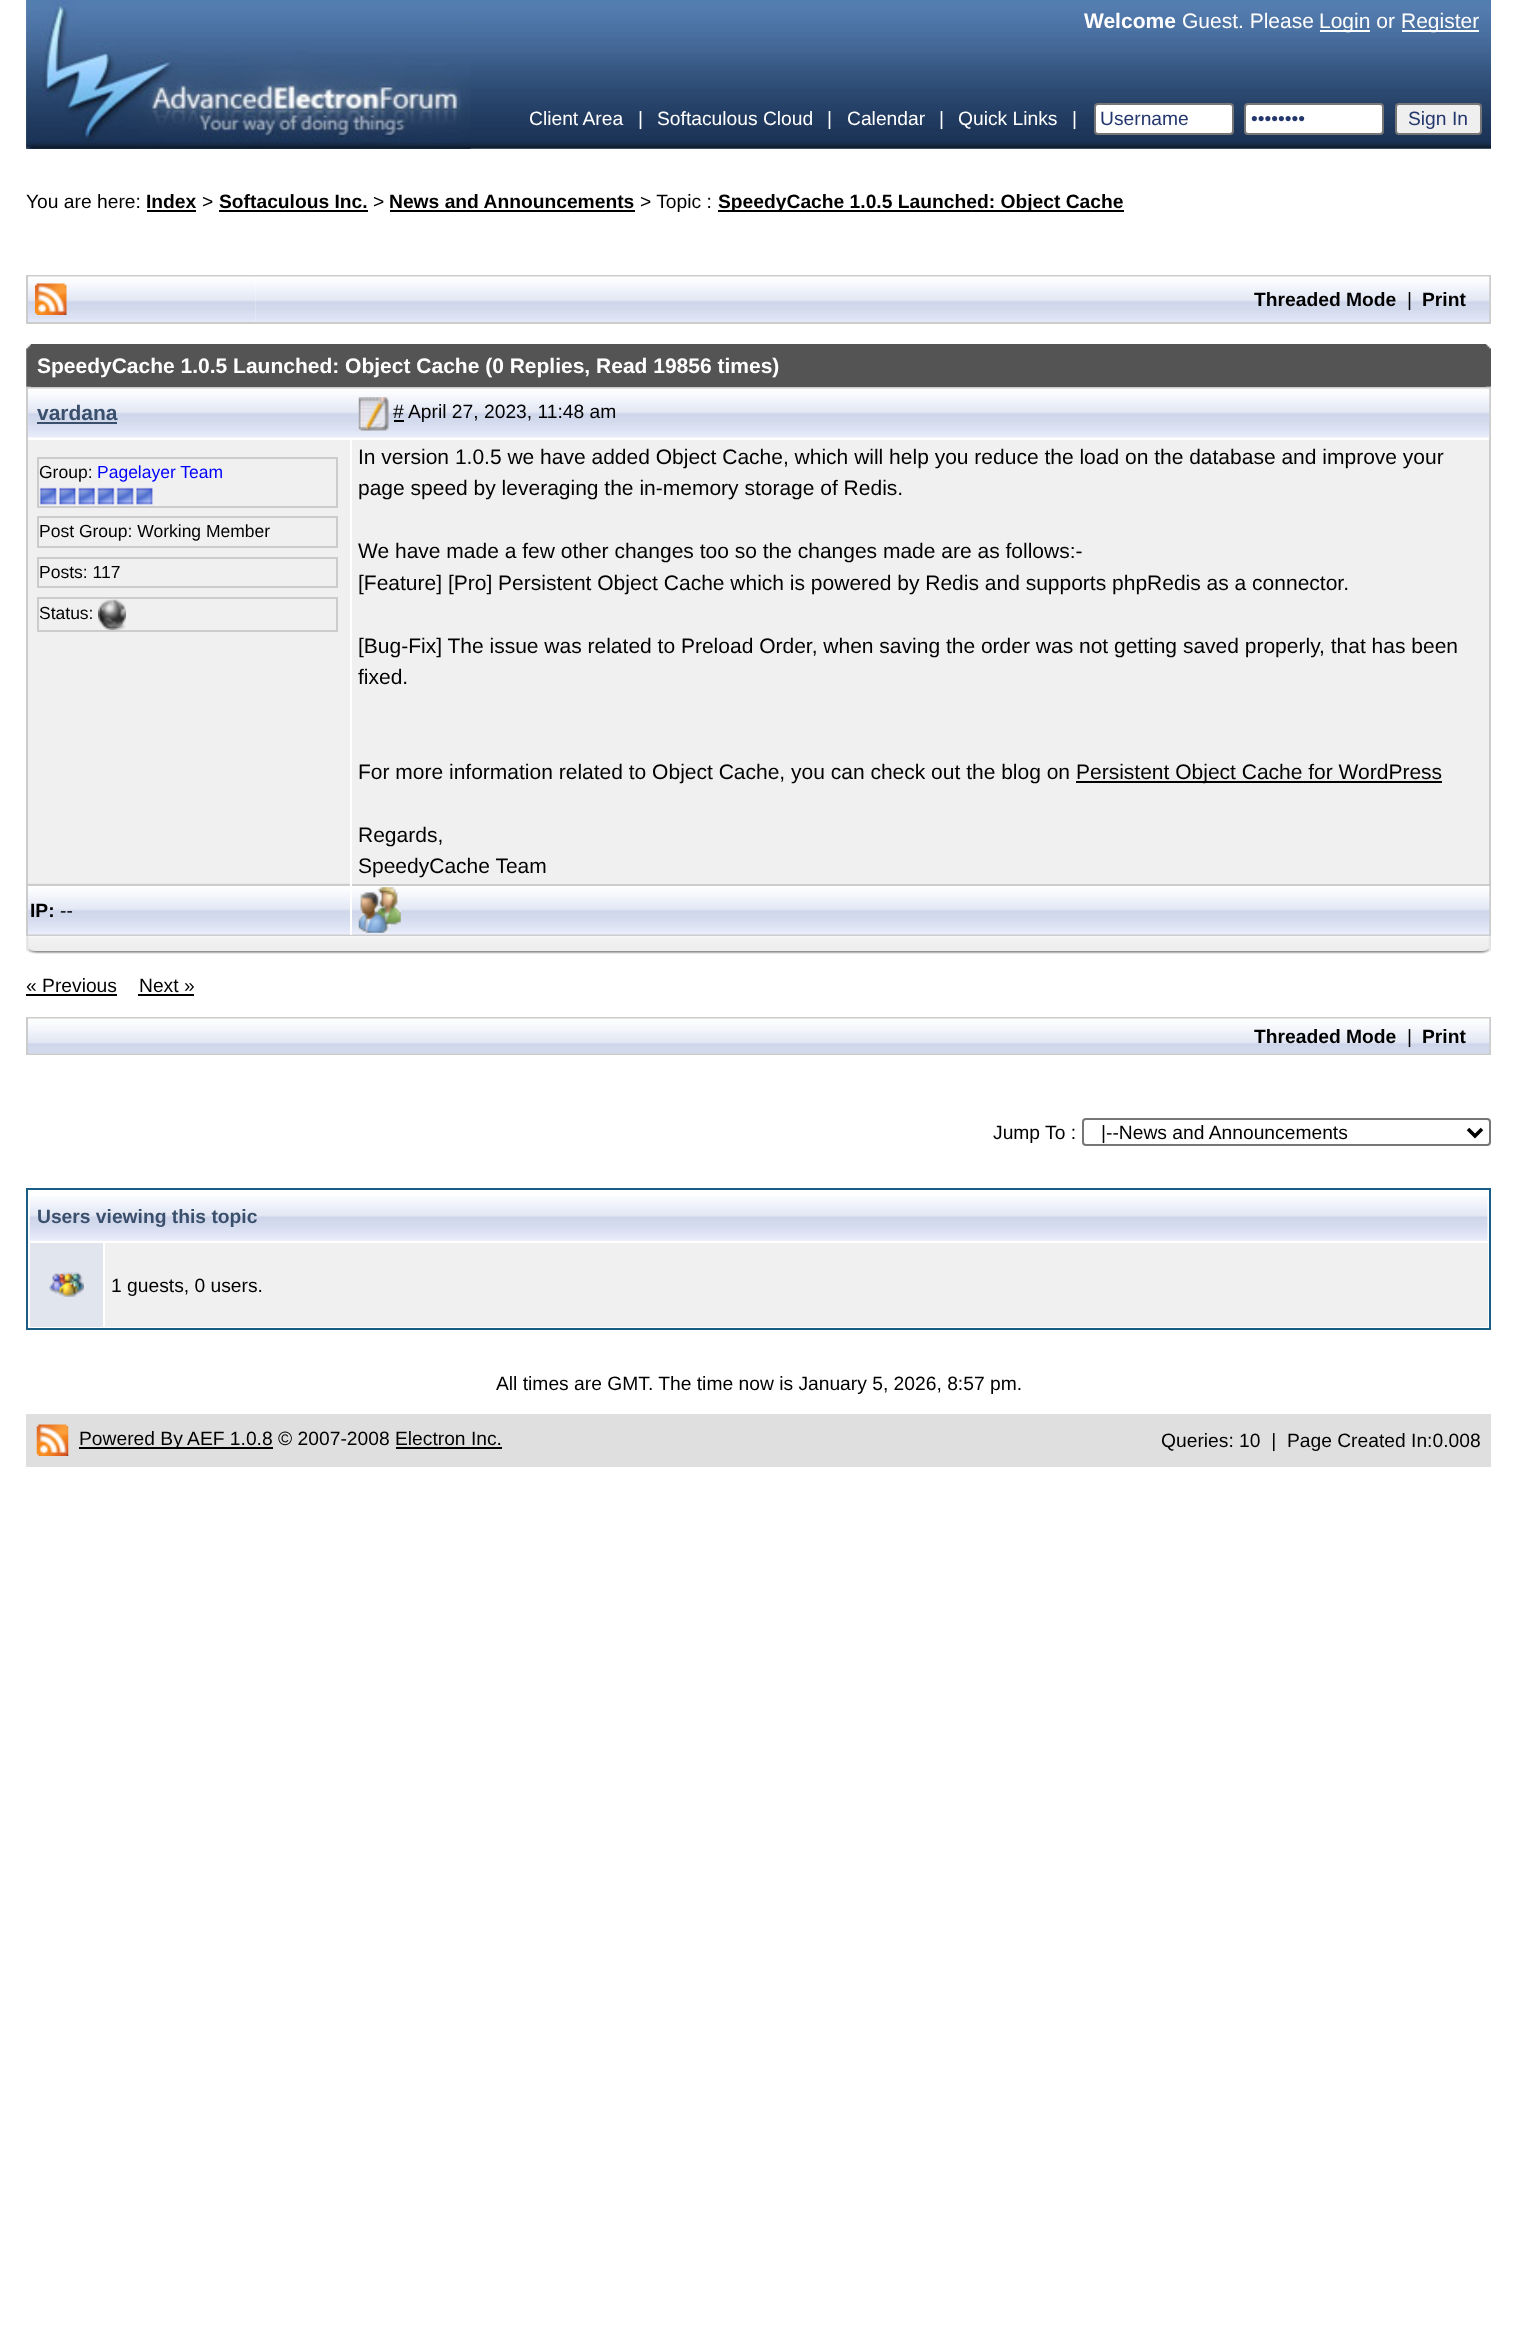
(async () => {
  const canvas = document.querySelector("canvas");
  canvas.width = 1516;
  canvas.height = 2330;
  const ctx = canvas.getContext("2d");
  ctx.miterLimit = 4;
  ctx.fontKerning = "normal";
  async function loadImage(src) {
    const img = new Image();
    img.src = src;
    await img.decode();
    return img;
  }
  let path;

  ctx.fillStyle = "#ffffff";
  ctx.fillRect(0, 0, 1516, 2330);
  ctx.drawImage(await loadImage("img/1.png"), 26, 0, 1465, 149);
  ctx.drawImage(await loadImage("img/2.png"), 26, 0, 445, 149);
  ctx.fillRect(1320, 30, 50, 2);
  ctx.fillRect(1402, 30, 77, 2);
  ctx.beginPath();
  ctx.roundRect(1095, 104, 138, 30, 3);
  ctx.fill();
  ctx.strokeStyle = "#767676";
  ctx.lineWidth = 2;
  ctx.stroke();
  ctx.beginPath();
  ctx.roundRect(1245, 104, 138, 30, 3);
  ctx.fill();
  ctx.stroke();
  ctx.fillStyle = "#efefef";
  ctx.beginPath();
  ctx.roundRect(1396, 104, 85, 30, 3);
  ctx.fill();
  ctx.stroke();
  for (const [x, y, w, h, color] of [
    [147, 210, 49, 2, "#000000"],
    [219, 210, 149, 2, "#000000"],
    [390, 210, 245, 2, "#000000"],
    [718, 210, 406, 2, "#000000"],
  ]) {
    ctx.fillStyle = color;
    ctx.fillRect(x, y, w, h);
  }
  ctx.strokeStyle = "#cccccc";
  ctx.strokeRect(27, 276, 1463, 47);
  ctx.drawImage(await loadImage("img/3.png"), 28, 276, 228, 46);
  ctx.drawImage(await loadImage("img/4.png"), 35, 283, 32, 32);
  ctx.drawImage(await loadImage("img/5.png"), 255, 276, 1235, 46);
  ctx.drawImage(await loadImage("img/6.png"), 26, 344, 5, 43);
  ctx.fillStyle = "#545454";
  ctx.fillRect(31, 344, 1455, 43);
  ctx.drawImage(await loadImage("img/7.png"), 1486, 344, 5, 43);
  ctx.strokeRect(27, 388, 1463, 547);
  ctx.drawImage(await loadImage("img/8.png"), 28, 388, 322, 50);
  ctx.fillStyle = "#3a4f6c";
  ctx.fillRect(37, 422, 80, 2);
  ctx.drawImage(await loadImage("img/9.png"), 350, 388, 1140, 50);
  ctx.drawImage(await loadImage("img/10.png"), 358, 397, 31, 34);
  ctx.fillStyle = "#000000";
  ctx.fillRect(394, 420, 10, 2);
  ctx.fillStyle = "#f0f0f0";
  ctx.fillRect(28, 440, 322, 444);
  ctx.strokeRect(38, 458, 299, 49);
  ctx.drawImage(await loadImage("img/11.png"), 39, 487, 18, 18);
  ctx.drawImage(await loadImage("img/12.png"), 59, 487, 17, 18);
  ctx.drawImage(await loadImage("img/13.png"), 78, 487, 17, 18);
  ctx.drawImage(await loadImage("img/14.png"), 97, 487, 18, 18);
  ctx.drawImage(await loadImage("img/15.png"), 116, 487, 18, 18);
  ctx.drawImage(await loadImage("img/12.png"), 136, 487, 17, 18);
  ctx.strokeRect(38, 517, 299, 30);
  ctx.strokeRect(38, 558, 299, 29);
  ctx.strokeRect(38, 598, 299, 33);
  ctx.drawImage(await loadImage("img/16.png"), 98, 599, 28, 31);
  ctx.drawImage(await loadImage("img/18.png"), 352, 883, 1138, 52);
  ctx.fillRect(352, 440, 1137, 444);
  ctx.fillStyle = "#000000";
  ctx.fillRect(1076, 781, 366, 2);
  ctx.drawImage(await loadImage("img/17.png"), 28, 883, 322, 52);
  for (const [x, y, w, h, color] of [
    [28, 884, 322, 2, "#cccccc"],
    [350, 884, 1139, 2, "#cccccc"],
    [350, 884, 2, 51, "#ffffff"],
  ]) {
    ctx.fillStyle = color;
    ctx.fillRect(x, y, w, h);
  }
  ctx.drawImage(await loadImage("img/19.png"), 358, 887, 43, 46);
  ctx.drawImage(await loadImage("img/20.png"), 26, 936, 1465, 18);
  ctx.fillStyle = "#000000";
  ctx.fillRect(26, 994, 91, 2);
  ctx.fillRect(138, 994, 56, 2);
  ctx.strokeRect(27, 1018, 1463, 36);
  ctx.drawImage(await loadImage("img/21.png"), 28, 1018, 1462, 36);
  ctx.beginPath();
  ctx.roundRect(1083, 1119, 407, 26, 3);
  ctx.strokeStyle = "#767676";
  ctx.stroke();
  path = new Path2D("M1468 1129L1475 1136L1482 1129");
  ctx.strokeStyle = "#000000";
  ctx.lineWidth = 3.5;
  ctx.stroke(path);
  ctx.strokeStyle = "#1a5e86";
  ctx.lineWidth = 2;
  ctx.strokeRect(27, 1189, 1463, 140);
  ctx.drawImage(await loadImage("img/22.png"), 29, 1196, 1459, 45);
  ctx.fillStyle = "#e1e6ee";
  ctx.fillRect(30, 1243, 73, 84);
  ctx.drawImage(await loadImage("img/23.png"), 49, 1272, 35, 25);
  ctx.fillStyle = "#f0f0f0";
  ctx.fillRect(105, 1243, 1383, 84);
  ctx.fillStyle = "#dfdfdf";
  ctx.fillRect(26, 1414, 1465, 53);
  ctx.drawImage(await loadImage("img/24.png"), 36, 1424, 33, 32);
  ctx.fillStyle = "#000000";
  ctx.fillRect(79, 1447, 194, 2);
  ctx.fillRect(396, 1447, 106, 2);
  ctx.font = "bold 21px Liberation Sans";
  ctx.fillStyle = "#ffffff";
  ctx.fillText("Welcome", 1084, 28);
  ctx.font = "21px Liberation Sans";
  for (const [text, x, y] of [
    ["Guest. Please", 1182, 28],
    ["Login or", 1319, 28],
    ["Register", 1401, 28],
  ]) {
    ctx.fillText(text, x, y);
  }
  ctx.font = "19.25px Liberation Sans";
  for (const [text, x, y] of [
    ["Client Area", 529, 125],
    ["|", 638, 125],
    ["Softaculous Cloud", 657, 125],
    ["|", 827, 125],
    ["Calendar", 847, 125],
    ["|", 939, 125],
    ["Quick Links", 958, 125],
    ["|", 1072, 125],
  ]) {
    ctx.fillText(text, x, y);
  }
  ctx.fillStyle = "#23376d";
  for (const [text, x, y] of [
    ["Username", 1100, 125],
    ["••••••••", 1251, 125],
    ["Sign In", 1408, 125],
  ]) {
    ctx.fillText(text, x, y);
  }
  ctx.fillStyle = "#000000";
  ctx.fillText("You are here:", 26, 208);
  ctx.font = "bold 19.25px Liberation Sans";
  ctx.fillText("Index", 146, 208);
  ctx.font = "19.25px Liberation Sans";
  ctx.fillText(">", 202, 208);
  ctx.font = "bold 19.25px Liberation Sans";
  ctx.fillText("Softaculous Inc.", 219, 208);
  ctx.font = "19.25px Liberation Sans";
  ctx.fillText(">", 373, 208);
  ctx.font = "bold 19.25px Liberation Sans";
  ctx.fillText("News and Announcements", 389, 208);
  ctx.font = "19.25px Liberation Sans";
  ctx.fillText("> Topic :", 640, 208);
  ctx.font = "bold 19.25px Liberation Sans";
  ctx.fillText("SpeedyCache 1.0.5 Launched: Object Cache", 718, 208);
  ctx.fillText("Threaded Mode", 1254, 306);
  ctx.font = "19.25px Liberation Sans";
  ctx.fillText("|", 1407, 306);
  ctx.font = "bold 19.25px Liberation Sans";
  ctx.fillText("Print", 1422, 306);
  ctx.font = "bold 21px Liberation Sans";
  ctx.fillStyle = "#ffffff";
  ctx.fillText("SpeedyCache 1.0.5 Launched: Object Cache (0 Replies, Read 19856 times)", 37, 373);
  ctx.fillStyle = "#3a4f6c";
  ctx.fillText("vardana", 37, 420);
  ctx.font = "19.25px Liberation Sans";
  ctx.fillStyle = "#000000";
  ctx.fillText("#", 393, 418);
  ctx.fillText("April 27, 2023, 11:48 am", 408, 418);
  ctx.font = "17.5px Liberation Sans";
  ctx.fillText("Group:", 39, 478);
  ctx.fillStyle = "#0000ff";
  ctx.fillText("Pagelayer Team", 97, 478);
  ctx.fillStyle = "#000000";
  for (const [text, x, y] of [
    ["Post Group: Working Member", 39, 537],
    ["Posts: 117", 39, 578],
    ["Status:", 39, 619],
  ]) {
    ctx.fillText(text, x, y);
  }
  ctx.font = "21px Liberation Sans";
  for (const [text, x, y] of [
    ["In version 1.0.5 we have added Object Cache, which will help you reduce the load on the database and improve your", 358, 464],
    ["page speed by leveraging the in-memory storage of Redis.", 358, 495],
    ["We have made a few other changes too so the changes made are as follows:-", 358, 558],
    ["[Feature] [Pro] Persistent Object Cache which is powered by Redis and supports phpRedis as a connector.", 358, 590],
    ["[Bug-Fix] The issue was related to Preload Order, when saving the order was not getting saved properly, that has been", 358, 653],
    ["fixed.", 358, 684],
    ["For more information related to Object Cache, you can check out the blog on", 358, 779],
    ["Persistent Object Cache for WordPress", 1076, 779],
    ["Regards,", 358, 842],
    ["SpeedyCache Team", 358, 873],
  ]) {
    ctx.fillText(text, x, y);
  }
  ctx.font = "bold 19.25px Liberation Sans";
  ctx.fillText("IP:", 30, 917);
  ctx.font = "19.25px Liberation Sans";
  for (const [text, x, y] of [
    ["--", 60, 917],
    ["« Previous", 26, 992],
    ["Next »", 139, 992],
  ]) {
    ctx.fillText(text, x, y);
  }
  ctx.font = "bold 19.25px Liberation Sans";
  ctx.fillText("Threaded Mode", 1254, 1043);
  ctx.font = "19.25px Liberation Sans";
  ctx.fillText("|", 1407, 1043);
  ctx.font = "bold 19.25px Liberation Sans";
  ctx.fillText("Print", 1422, 1043);
  ctx.font = "19.25px Liberation Sans";
  ctx.fillText("Jump To :", 993, 1139);
  ctx.fillText("|--News and Announcements", 1101, 1139);
  ctx.font = "bold 19.25px Liberation Sans";
  ctx.fillStyle = "#3a4f6c";
  ctx.fillText("Users viewing this topic", 37, 1223);
  ctx.font = "19.25px Liberation Sans";
  ctx.fillStyle = "#000000";
  for (const [text, x, y] of [
    ["1 guests, 0 users.", 111, 1292],
    ["All times are GMT. The time now is January 5, 2026, 8:57 pm.", 496, 1390],
    ["Powered By AEF 1.0.8 © 2007-2008 Electron Inc.", 79, 1445],
    ["Queries: 10  |  Page Created In:0.008", 1161, 1447],
  ]) {
    ctx.fillText(text, x, y);
  }
})();
